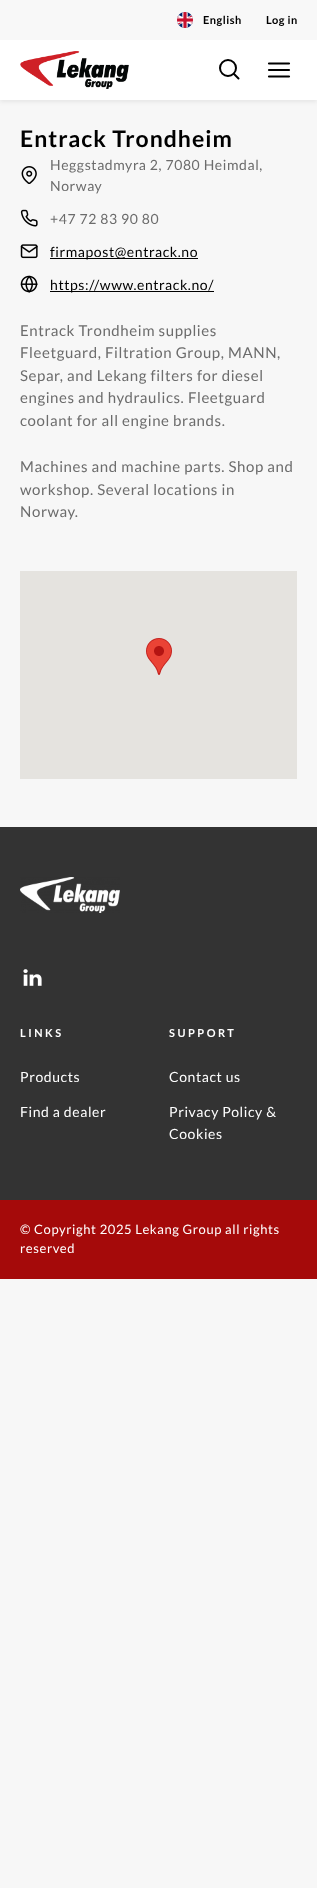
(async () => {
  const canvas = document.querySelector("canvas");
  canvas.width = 317;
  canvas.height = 1888;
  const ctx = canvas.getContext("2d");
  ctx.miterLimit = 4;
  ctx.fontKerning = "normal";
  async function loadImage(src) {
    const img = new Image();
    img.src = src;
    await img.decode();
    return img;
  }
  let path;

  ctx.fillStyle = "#f7f7f7";
  ctx.fillRect(0, 0, 317, 1888);
  ctx.fillStyle = "rgba(0, 0, 0, 0.07)";
  ctx.filter = "blur(2px)";
  ctx.beginPath();
  ctx.rect(0, 2, 317, 100);
  ctx.fill();
  ctx.filter = "none";
  ctx.fillStyle = "#ffffff";
  ctx.fillRect(0, 40, 317, 60);
  ctx.fillStyle = "#f8f8f8";
  ctx.fillRect(0, 0, 317, 40);
  ctx.drawImage(await loadImage("img/1.png"), 177, 12, 16, 16);
  ctx.drawImage(await loadImage("img/2.png"), 20, 51, 109, 38);
  ctx.beginPath();
  ctx.arc(228, 68, 8, 0, Math.PI * 2);
  ctx.strokeStyle = "#000000";
  ctx.lineWidth = 2;
  ctx.stroke();
  path = new Path2D("M234 74L238.5 78.5");
  ctx.lineCap = "round";
  ctx.lineJoin = "round";
  ctx.stroke(path);
  path = new Path2D("M269 70H289M269 63.5H289M269 76.5H289");
  ctx.lineWidth = 2.2;
  ctx.stroke(path);
  ctx.drawImage(await loadImage("img/3.png"), 21, 166, 16, 18);
  ctx.drawImage(await loadImage("img/4.png"), 20, 209, 18, 18);
  ctx.drawImage(await loadImage("img/5.png"), 20, 244, 18, 15);
  ctx.fillStyle = "#000000";
  ctx.fillRect(50, 258, 148, 1);
  ctx.drawImage(await loadImage("img/6.png"), 20, 275, 18, 18);
  ctx.fillRect(50, 291, 164, 1);
  ctx.fillStyle = "#e5e3df";
  ctx.fillRect(20, 571, 277, 208);
  ctx.drawImage(await loadImage("img/7.png"), 146, 638, 26, 37);
  ctx.fillStyle = "#333333";
  ctx.fillRect(0, 827, 317, 373);
  ctx.drawImage(await loadImage("img/8.png"), 20, 877, 100, 36);
  ctx.drawImage(await loadImage("img/9.png"), 23, 969, 19, 17);
  ctx.fillStyle = "#a50a0a";
  ctx.fillRect(0, 1200, 317, 79);
  ctx.letterSpacing = "0.5px";
  ctx.font = "bold 11px Lato";
  ctx.fillStyle = "#000000";
  ctx.fillText("English", 203, 24);
  ctx.fillText("Log in", 266, 24);
  ctx.letterSpacing = "1px";
  ctx.font = "bold 23px Lato";
  ctx.fillText("Entrack Trondheim", 20, 147);
  ctx.letterSpacing = "0.6px";
  ctx.font = "14px Lato";
  ctx.fillStyle = "#6c6c6c";
  for (const [text, x, y] of [
    ["Heggstadmyra 2, 7080 Heimdal,", 50, 170],
    ["Norway", 50, 191],
    ["+47 72 83 90 80", 50, 224],
  ]) {
    ctx.fillText(text, x, y);
  }
  ctx.fillStyle = "#000000";
  ctx.fillText("firmapost@entrack.no", 50, 257);
  ctx.fillText("https://www.entrack.no/", 50, 290);
  ctx.font = "15px Lato";
  ctx.fillStyle = "#6c6c6c";
  for (const [text, x, y] of [
    ["Entrack Trondheim supplies", 20, 336],
    ["Fleetguard, Filtration Group, MANN,", 20, 358],
    ["Separ, and Lekang filters for diesel", 20, 381],
    ["engines and hydraulics. Fleetguard", 20, 403],
    ["coolant for all engine brands.", 20, 426],
    ["Machines and machine parts. Shop and", 20, 472],
    ["workshop. Several locations in", 20, 495],
    ["Norway.", 20, 517],
  ]) {
    ctx.fillText(text, x, y);
  }
  ctx.letterSpacing = "2.5px";
  ctx.font = "bold 11px Lato";
  ctx.fillStyle = "#ffffff";
  ctx.fillText("LINKS", 20, 1037);
  ctx.letterSpacing = "0.6px";
  ctx.font = "14px Lato";
  ctx.fillText("Products", 20, 1082);
  ctx.fillText("Find a dealer", 20, 1117);
  ctx.letterSpacing = "2.5px";
  ctx.font = "bold 11px Lato";
  ctx.fillText("SUPPORT", 169, 1037);
  ctx.letterSpacing = "0.6px";
  ctx.font = "14px Lato";
  for (const [text, x, y] of [
    ["Contact us", 169, 1082],
    ["Privacy Policy &", 169, 1117],
    ["Cookies", 169, 1139],
  ]) {
    ctx.fillText(text, x, y);
  }
  ctx.font = "13px Lato";
  ctx.fillText("© Copyright 2025 Lekang Group all rights", 20, 1234);
  ctx.fillText("reserved", 20, 1253);
})();
